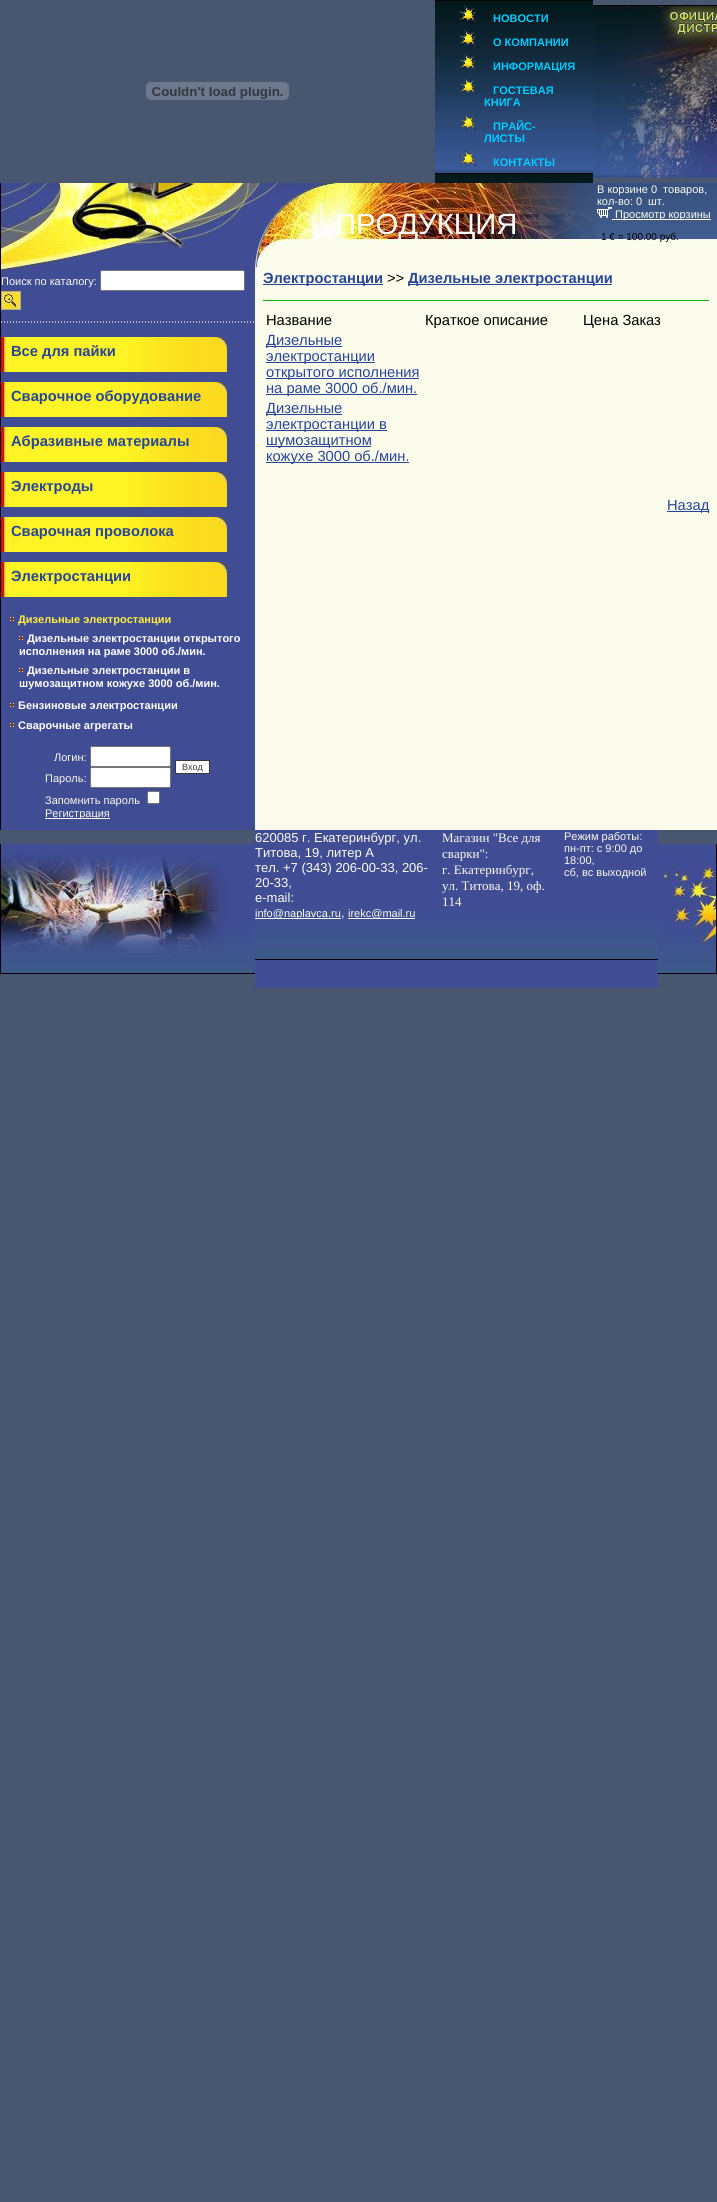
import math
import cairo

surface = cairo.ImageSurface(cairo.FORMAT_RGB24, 717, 2202)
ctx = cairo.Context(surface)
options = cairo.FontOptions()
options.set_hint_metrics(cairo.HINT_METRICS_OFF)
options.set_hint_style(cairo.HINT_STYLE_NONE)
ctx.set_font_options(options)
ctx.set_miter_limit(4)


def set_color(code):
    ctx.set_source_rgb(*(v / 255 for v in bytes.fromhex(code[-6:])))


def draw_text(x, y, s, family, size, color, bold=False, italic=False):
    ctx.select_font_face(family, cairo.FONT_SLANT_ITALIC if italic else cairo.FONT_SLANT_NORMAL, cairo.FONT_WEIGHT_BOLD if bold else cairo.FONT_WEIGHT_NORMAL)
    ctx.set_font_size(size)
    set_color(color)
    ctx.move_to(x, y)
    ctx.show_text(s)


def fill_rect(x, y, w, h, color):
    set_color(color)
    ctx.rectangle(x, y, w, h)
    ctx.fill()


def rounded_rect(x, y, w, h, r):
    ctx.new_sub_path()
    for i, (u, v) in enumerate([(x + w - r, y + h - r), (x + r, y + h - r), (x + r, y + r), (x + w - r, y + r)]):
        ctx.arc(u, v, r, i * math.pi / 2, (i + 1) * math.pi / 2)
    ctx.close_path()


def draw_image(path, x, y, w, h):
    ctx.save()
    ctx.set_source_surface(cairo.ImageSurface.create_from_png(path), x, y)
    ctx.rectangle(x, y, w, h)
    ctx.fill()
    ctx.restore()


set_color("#485670")
ctx.paint()
draw_image("assets/img1.png", 146, 82, 143, 18)
draw_image("assets/img2.png", 435, 0, 158, 183)
draw_image("assets/img3.png", 460, 6, 16, 16)
draw_text(493, 22, "НОВОСТИ", "Liberation Sans", 11, "#00ccff", bold=True)
draw_image("assets/img4.png", 460, 30, 16, 16)
draw_text(493, 46, "О КОМПАНИИ", "Liberation Sans", 11, "#00ccff", bold=True)
draw_image("assets/img5.png", 460, 54, 16, 16)
draw_text(493, 70, "ИНФОРМАЦИЯ", "Liberation Sans", 11, "#00ccff", bold=True)
draw_image("assets/img6.png", 460, 78, 16, 16)
draw_text(493, 94, "ГОСТЕВАЯ", "Liberation Sans", 11, "#00ccff", bold=True)
draw_text(484, 106, "КНИГА", "Liberation Sans", 11, "#00ccff", bold=True)
draw_image("assets/img7.png", 460, 114, 16, 16)
draw_text(493, 130, "ПРАЙС-", "Liberation Sans", 11, "#00ccff", bold=True)
draw_text(484, 142, "ЛИСТЫ", "Liberation Sans", 11, "#00ccff", bold=True)
draw_image("assets/img8.png", 460, 150, 16, 16)
draw_text(493, 166, "КОНТАКТЫ", "Liberation Sans", 11, "#00ccff", bold=True)
draw_image("assets/img9.png", 593, 5, 124, 173)
draw_image("assets/img10.png", 0, 183, 255, 87)
draw_image("assets/img11.png", 255, 183, 342, 87)
draw_text(335, 234, "ПРОДУКЦИЯ", "Liberation Sans", 29.25, "#ffffff")
draw_image("assets/img12.png", 597, 183, 120, 87)
draw_text(597, 193, "В корзине 0", "Liberation Sans", 11, "#fbfcec")
draw_text(663, 193, "товаров,", "Liberation Sans", 11, "#fbfcec")
draw_text(597, 205, "кол-во: 0", "Liberation Sans", 11, "#fbfcec")
draw_text(648, 205, "шт.", "Liberation Sans", 11, "#fbfcec")
draw_image("assets/img13.png", 597, 207, 15, 11)
fill_rect(612, 219, 99, 1, "#fbfcec")
draw_text(615, 218, "Просмотр корзины", "Liberation Sans", 11, "#fbfcec")
draw_text(601, 240, "1 € = 100.00 руб.", "Liberation Sans", 10, "#000000")
fill_rect(0, 270, 1, 560, "#020204")
fill_rect(1, 270, 254, 560, "#404c94")
draw_text(1, 285, "Поиск по каталогу:", "Liberation Sans", 11, "#fbfcec")
set_color("#ffffff")
rounded_rect(100.5, 270.5, 144, 20, 1.5)
ctx.fill_preserve()
set_color("#767676")
ctx.set_line_width(1)
ctx.stroke()
draw_image("assets/img14.png", 1, 291, 20, 19)
draw_image("assets/img15.png", 1, 321, 254, 2)
draw_image("assets/img16.png", 1, 337, 226, 35)
draw_text(11, 356, "Все для пайки", "Liberation Sans", 14.7, "#274599", bold=True)
draw_image("assets/img16.png", 1, 382, 226, 35)
draw_text(11, 401, "Сварочное оборудование", "Liberation Sans", 14.7, "#274599", bold=True)
draw_image("assets/img16.png", 1, 427, 226, 35)
draw_text(11, 446, "Абразивные материалы", "Liberation Sans", 14.7, "#274599", bold=True)
draw_image("assets/img16.png", 1, 472, 226, 35)
draw_text(11, 491, "Электроды", "Liberation Sans", 14.7, "#274599", bold=True)
draw_image("assets/img16.png", 1, 517, 226, 35)
draw_text(11, 536, "Сварочная проволока", "Liberation Sans", 14.7, "#274599", bold=True)
draw_image("assets/img16.png", 1, 562, 226, 35)
draw_text(11, 581, "Электростанции", "Liberation Sans", 14.7, "#274599", bold=True)
draw_image("assets/img17.png", 10, 617, 4, 4)
draw_text(18, 623, "Дизельные электростанции", "Liberation Sans", 11, "#ffef3f", bold=True)
draw_image("assets/img17.png", 19, 636, 4, 4)
draw_text(27, 642, "Дизельные электростанции открытого", "Liberation Sans", 11, "#ffffff", bold=True)
draw_text(19, 655, "исполнения на раме 3000 об./мин.", "Liberation Sans", 11, "#ffffff", bold=True)
draw_image("assets/img17.png", 19, 668, 4, 4)
draw_text(27, 674, "Дизельные электростанции в", "Liberation Sans", 11, "#ffffff", bold=True)
draw_text(19, 687, "шумозащитном кожухе 3000 об./мин.", "Liberation Sans", 11, "#ffffff", bold=True)
draw_image("assets/img17.png", 10, 703, 4, 4)
draw_text(18, 709, "Бензиновые электростанции", "Liberation Sans", 11, "#ffffff", bold=True)
draw_image("assets/img17.png", 10, 723, 4, 4)
draw_text(18, 729, "Сварочные агрегаты", "Liberation Sans", 11, "#ffffff", bold=True)
draw_text(54, 761, "Логин:", "Liberation Sans", 11, "#fbfcec")
set_color("#ffffff")
rounded_rect(90.5, 746.5, 80, 20, 1.5)
ctx.fill_preserve()
set_color("#767676")
ctx.stroke()
draw_text(45, 782, "Пароль:", "Liberation Sans", 11, "#fbfcec")
set_color("#ffffff")
rounded_rect(90.5, 767.5, 80, 20, 1.5)
ctx.fill_preserve()
set_color("#767676")
ctx.stroke()
set_color("#ffffff")
ctx.rectangle(175.5, 760.5, 34, 13)
ctx.fill_preserve()
set_color("#373737")
ctx.stroke()
draw_text(182, 770, "Вход", "Liberation Sans", 9, "#373737")
draw_text(45, 804, "Запомнить пароль", "Liberation Sans", 11, "#fbfcec")
set_color("#ffffff")
rounded_rect(147.5, 791.5, 12, 12, 1.5)
ctx.fill_preserve()
set_color("#767676")
ctx.stroke()
fill_rect(45, 818, 65, 1, "#fbfcec")
draw_text(45, 817, "Регистрация", "Liberation Sans", 11, "#fbfcec")
fill_rect(255, 270, 462, 560, "#fbfcec")
fill_rect(263, 284, 120, 1, "#274599")
draw_text(263, 283, "Электростанции", "Liberation Sans", 14.7, "#274599", bold=True)
draw_text(387, 283, ">>", "Liberation Sans", 14.7, "#000000")
fill_rect(408, 284, 204, 1, "#274599")
draw_text(408, 283, "Дизельные электростанции", "Liberation Sans", 14.7, "#274599", bold=True)
fill_rect(263, 300, 446, 1, "#00b900")
draw_text(266, 325, "Название", "Liberation Sans", 14.7, "#000000")
draw_text(425, 325, "Краткое описание", "Liberation Sans", 14.7, "#000000")
draw_text(583, 325, "Цена Заказ", "Liberation Sans", 14.7, "#000000")
fill_rect(266, 346, 76, 1, "#274599")
draw_text(266, 345, "Дизельные", "Liberation Sans", 14.7, "#274599")
fill_rect(266, 362, 109, 1, "#274599")
draw_text(266, 361, "электростанции", "Liberation Sans", 14.7, "#274599")
fill_rect(266, 378, 153, 1, "#274599")
draw_text(266, 377, "открытого исполнения", "Liberation Sans", 14.7, "#274599")
fill_rect(266, 394, 151, 1, "#274599")
draw_text(266, 393, "на раме 3000 об./мин.", "Liberation Sans", 14.7, "#274599")
fill_rect(266, 414, 76, 1, "#274599")
draw_text(266, 413, "Дизельные", "Liberation Sans", 14.7, "#274599")
fill_rect(266, 430, 121, 1, "#274599")
draw_text(266, 429, "электростанции в", "Liberation Sans", 14.7, "#274599")
fill_rect(266, 446, 105, 1, "#274599")
draw_text(266, 445, "шумозащитном", "Liberation Sans", 14.7, "#274599")
fill_rect(266, 462, 143, 1, "#274599")
draw_text(266, 461, "кожухе 3000 об./мин.", "Liberation Sans", 14.7, "#274599")
fill_rect(667, 511, 42, 1, "#274599")
draw_text(667, 510, "Назад", "Liberation Sans", 14.7, "#274599")
draw_image("assets/img18.png", 0, 844, 255, 130)
draw_image("assets/img19.png", 255, 830, 403, 158)
draw_text(255, 842, "620085 г. Екатеринбург, ул.", "Liberation Sans", 13, "#fbfcec")
draw_text(255, 857, "Титова, 19, литер A", "Liberation Sans", 13, "#fbfcec")
draw_text(255, 872, "тел. +7 (343) 206-00-33, 206-", "Liberation Sans", 13, "#fbfcec")
draw_text(255, 887, "20-33,", "Liberation Sans", 13, "#fbfcec")
draw_text(255, 902, "e-mail:", "Liberation Sans", 13, "#fbfcec")
fill_rect(255, 918, 86, 1, "#fbfcec")
draw_text(255, 917, "info@naplavca.ru", "Liberation Sans", 11, "#fbfcec")
draw_text(341, 917, ",", "Liberation Sans", 13, "#fbfcec")
fill_rect(348, 918, 67, 1, "#fbfcec")
draw_text(348, 917, "irekc@mail.ru", "Liberation Sans", 11, "#fbfcec")
draw_text(442, 842, "Магазин \"Все для", "Liberation Serif", 13, "#fbfcec")
draw_text(442, 858, "сварки\":", "Liberation Serif", 13, "#fbfcec")
draw_text(442, 874, "г. Екатеринбург,", "Liberation Serif", 13, "#fbfcec")
draw_text(442, 890, "ул. Титова, 19, оф.", "Liberation Serif", 13, "#fbfcec")
draw_text(442, 906, "114", "Liberation Serif", 13, "#fbfcec")
draw_text(564, 840, "Режим работы:", "Liberation Sans", 11, "#fbfcec")
draw_text(564, 852, "пн-пт: с 9:00 до", "Liberation Sans", 11, "#fbfcec")
draw_text(564, 864, "18:00,", "Liberation Sans", 11, "#fbfcec")
draw_text(564, 876, "сб, вс выходной", "Liberation Sans", 11, "#fbfcec")
draw_image("assets/img20.png", 658, 844, 59, 130)
surface.write_to_png("output.png")
